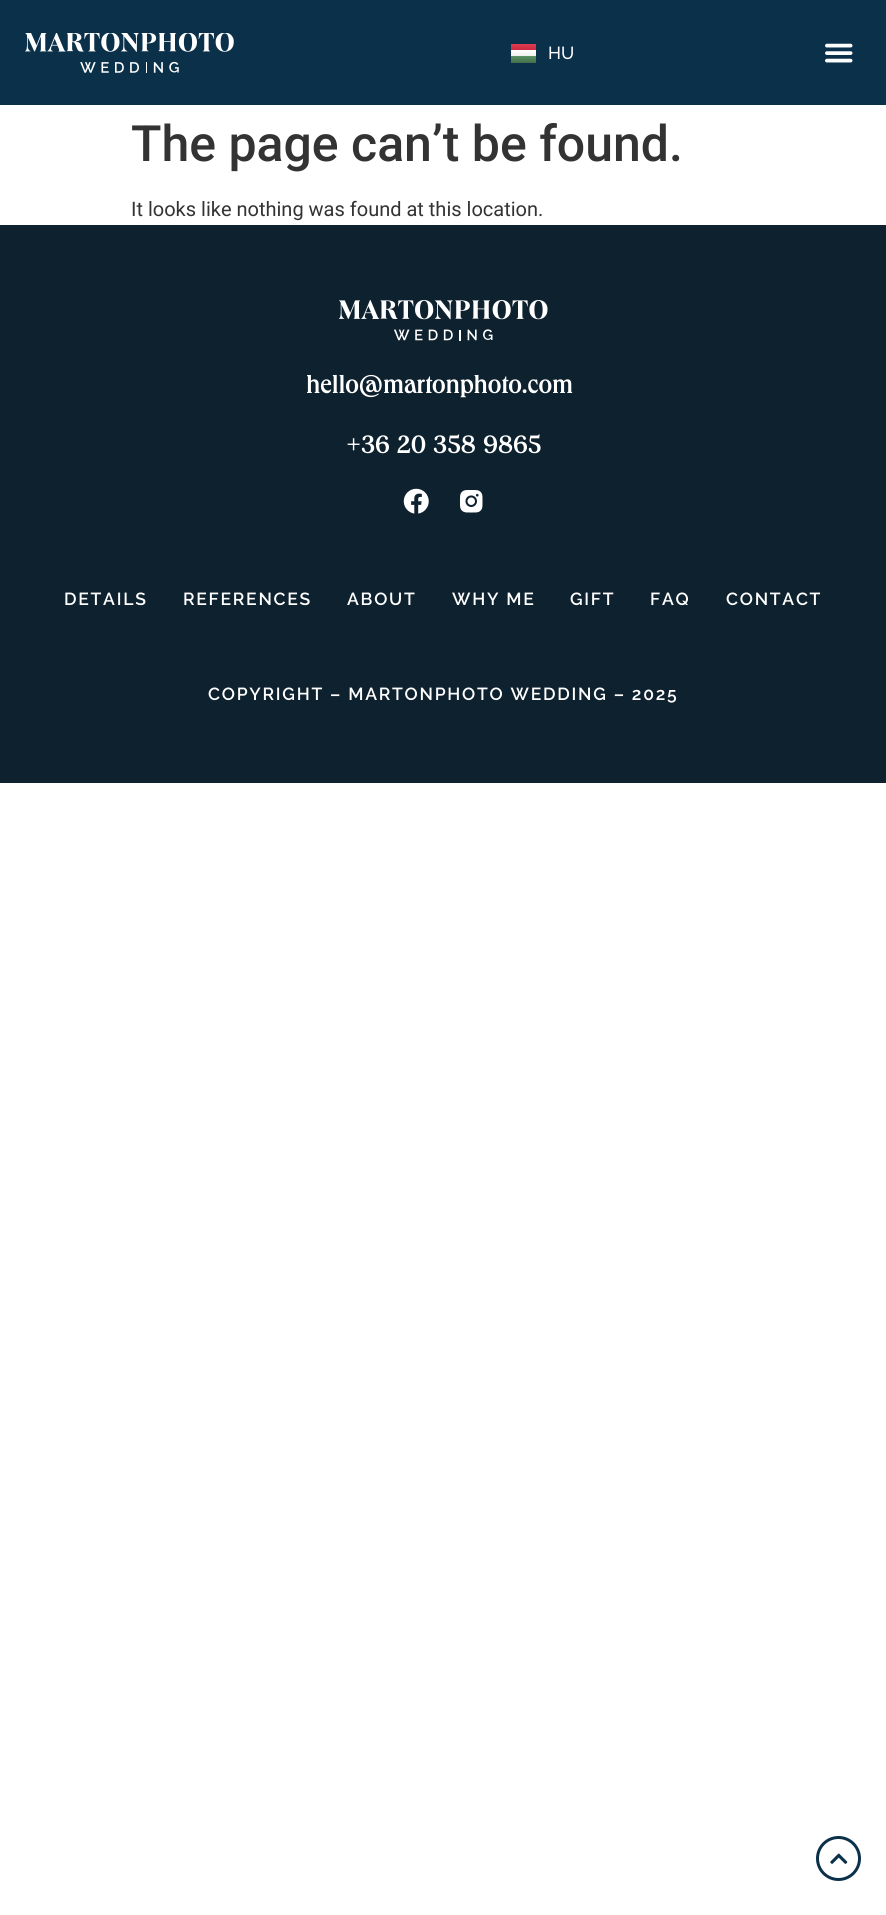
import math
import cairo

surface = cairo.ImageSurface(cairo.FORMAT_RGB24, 886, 1915)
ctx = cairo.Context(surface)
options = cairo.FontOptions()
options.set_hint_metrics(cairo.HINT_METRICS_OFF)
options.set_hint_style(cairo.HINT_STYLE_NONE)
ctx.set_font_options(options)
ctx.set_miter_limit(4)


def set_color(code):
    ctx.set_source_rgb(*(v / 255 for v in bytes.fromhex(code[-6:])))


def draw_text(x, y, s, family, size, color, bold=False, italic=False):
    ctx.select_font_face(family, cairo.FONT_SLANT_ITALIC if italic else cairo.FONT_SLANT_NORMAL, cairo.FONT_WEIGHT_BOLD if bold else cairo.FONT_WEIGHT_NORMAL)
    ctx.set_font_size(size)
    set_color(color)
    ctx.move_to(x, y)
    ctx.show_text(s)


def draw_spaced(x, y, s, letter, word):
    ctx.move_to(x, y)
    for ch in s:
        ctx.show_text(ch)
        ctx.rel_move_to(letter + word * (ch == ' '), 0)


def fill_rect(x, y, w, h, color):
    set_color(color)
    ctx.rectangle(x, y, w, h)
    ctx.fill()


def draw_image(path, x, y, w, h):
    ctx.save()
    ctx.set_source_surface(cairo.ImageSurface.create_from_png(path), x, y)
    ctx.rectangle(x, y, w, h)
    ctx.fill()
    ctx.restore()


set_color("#ffffff")
ctx.paint()
fill_rect(0, 0, 886, 105, "#0b304a")
draw_image("assets/img1.png", 25, 33, 209, 40)
gradient = cairo.LinearGradient(523, 44, 523, 50)
gradient.add_color_stop_rgba(0, 0.878, 0.239, 0.322, 1)
gradient.add_color_stop_rgba(1, 0.804, 0.165, 0.247, 1)
ctx.set_source(gradient)
ctx.rectangle(511, 44, 25, 6)
ctx.fill()
gradient = cairo.LinearGradient(523, 50, 523, 56)
gradient.add_color_stop_rgba(0, 1, 1, 1, 1)
gradient.add_color_stop_rgba(1, 0.941, 0.941, 0.941, 1)
ctx.set_source(gradient)
ctx.rectangle(511, 50, 25, 6)
ctx.fill()
gradient = cairo.LinearGradient(523, 56, 523, 63)
gradient.add_color_stop_rgba(0, 0.353, 0.569, 0.396, 1)
gradient.add_color_stop_rgba(1, 0.267, 0.439, 0.302, 1)
ctx.set_source(gradient)
ctx.rectangle(511, 56, 25, 7)
ctx.fill()
draw_text(548, 59, "HU", "Raleway Medium", 17.5, "#ffffff")
draw_image("assets/img2.png", 825, 43, 28, 20)
ctx.arc(838.5, 1858.5, 21, 0, 2 * math.pi)
set_color("#0b304a")
ctx.set_line_width(3)
ctx.stroke()
draw_image("assets/img3.png", 830, 1853, 18, 11)
draw_text(131, 161, "The page can’t be found.", "Roboto Medium", 50, "#333333")
draw_text(131, 216, "It looks like nothing was found at this location.", "Roboto", 20, "#333333")
fill_rect(0, 225, 886, 558, "#0e212e")
draw_image("assets/img4.png", 339, 300, 209, 41)
ctx.select_font_face("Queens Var", cairo.FONT_SLANT_NORMAL, cairo.FONT_WEIGHT_BOLD)
ctx.set_font_size(25)
set_color("#ffffff")
draw_spaced(306, 393, "hello@martonphoto.com", 0.5, 0)
draw_spaced(346, 453, "+36 20 358 9865", 0.5, 1)
draw_image("assets/img5.png", 403, 488, 26, 26)
draw_image("assets/img6.png", 460, 490, 23, 23)
ctx.select_font_face("Raleway SemiBold")
ctx.set_font_size(17.5)
draw_spaced(64, 605, "DETAILS", 1.75, 0)
draw_spaced(183, 605, "REFERENCES", 1.75, 0)
draw_spaced(347, 605, "ABOUT", 1.75, 0)
draw_spaced(452, 605, "WHY ME", 1.75, 0)
draw_spaced(570, 605, "GIFT", 1.75, 0)
draw_spaced(650, 605, "FAQ", 1.75, 0)
draw_spaced(726, 605, "CONTACT", 1.75, 0)
draw_spaced(208, 700, "COPYRIGHT – MARTONPHOTO WEDDING – 2025", 1.75, 0)
surface.write_to_png("output.png")
